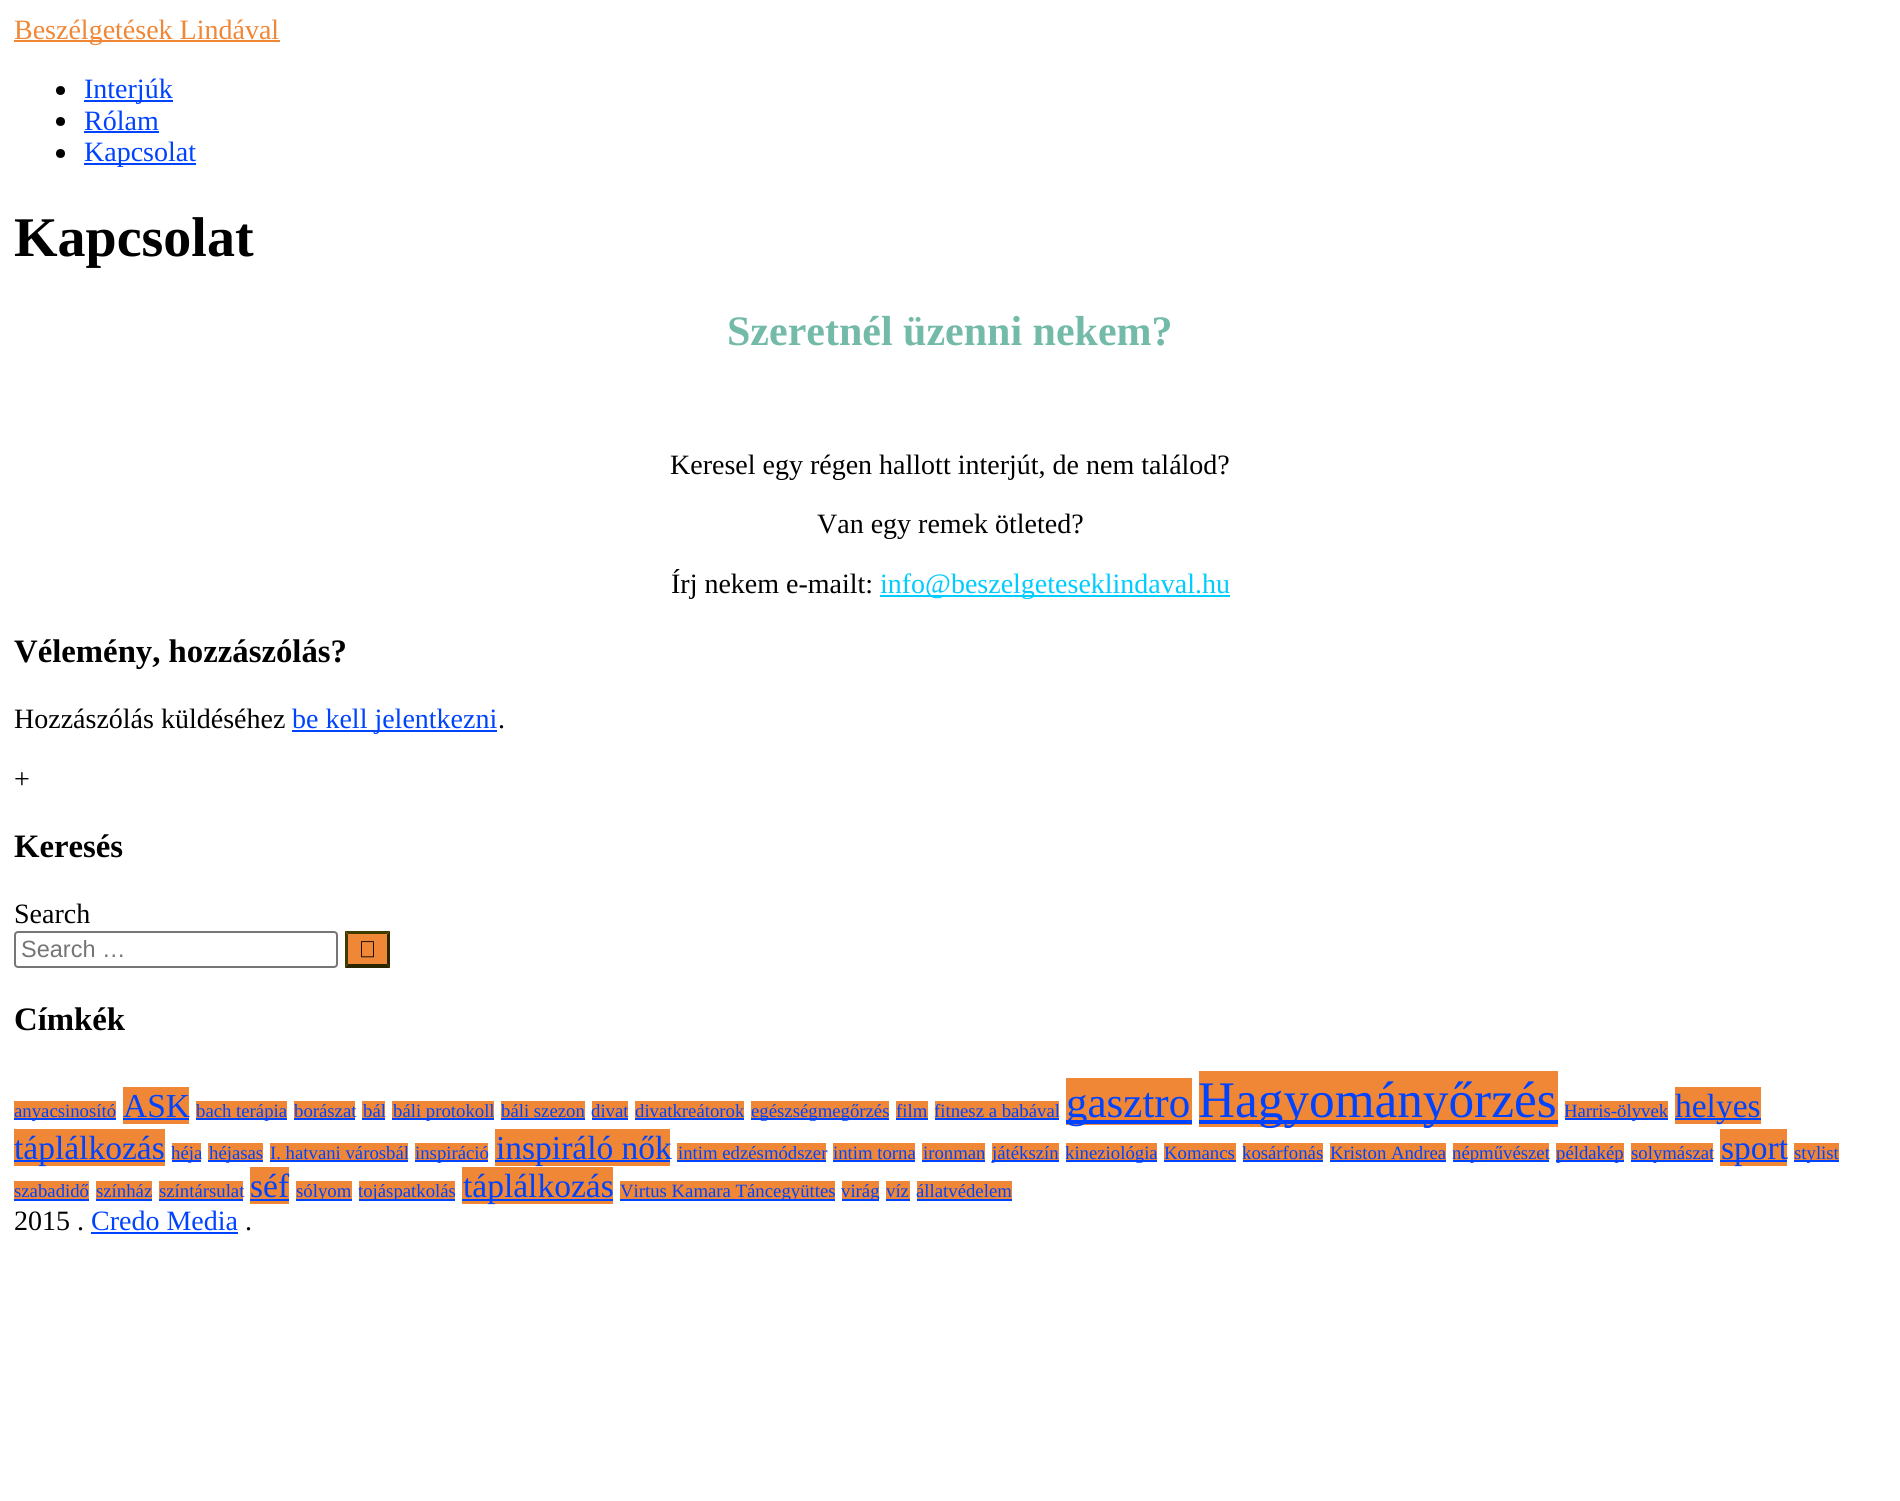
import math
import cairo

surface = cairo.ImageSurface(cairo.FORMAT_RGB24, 1900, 1501)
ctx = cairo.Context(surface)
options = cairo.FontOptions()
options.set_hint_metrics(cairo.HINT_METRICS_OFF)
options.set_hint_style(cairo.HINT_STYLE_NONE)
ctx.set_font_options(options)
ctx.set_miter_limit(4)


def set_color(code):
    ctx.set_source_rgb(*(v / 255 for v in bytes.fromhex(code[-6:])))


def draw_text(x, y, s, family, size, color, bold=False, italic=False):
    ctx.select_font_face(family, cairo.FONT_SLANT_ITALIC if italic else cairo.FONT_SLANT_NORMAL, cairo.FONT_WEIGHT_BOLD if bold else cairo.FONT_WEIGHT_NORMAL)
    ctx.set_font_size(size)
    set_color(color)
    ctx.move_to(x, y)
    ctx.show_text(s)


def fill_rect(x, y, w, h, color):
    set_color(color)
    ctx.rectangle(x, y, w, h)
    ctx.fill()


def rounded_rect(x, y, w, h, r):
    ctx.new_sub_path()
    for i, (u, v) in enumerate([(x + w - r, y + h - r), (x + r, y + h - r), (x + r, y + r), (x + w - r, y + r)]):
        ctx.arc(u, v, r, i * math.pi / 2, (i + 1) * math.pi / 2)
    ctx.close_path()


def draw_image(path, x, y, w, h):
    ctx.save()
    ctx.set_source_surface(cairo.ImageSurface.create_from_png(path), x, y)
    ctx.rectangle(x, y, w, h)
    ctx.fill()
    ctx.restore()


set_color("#ffffff")
ctx.paint()
fill_rect(14, 40, 266, 2, "#ef8737")
draw_text(14, 39, "Beszélgetések Lindával", "Liberation Serif", 28, "#ef8737")
set_color("#000000")
ctx.new_path()
ctx.arc(60.5, 90.5, 4.5, 0, 2 * math.pi)
ctx.fill()
fill_rect(84, 100, 89, 2, "#0043ff")
draw_text(84, 98, "Interjúk", "Liberation Serif", 28, "#0043ff")
set_color("#000000")
ctx.new_path()
ctx.arc(60.5, 121.5, 4.5, 0, 2 * math.pi)
ctx.fill()
draw_text(84, 130, "Rólam", "Liberation Serif", 28, "#0043ff")
fill_rect(84, 131, 75, 2, "#0043ff")
set_color("#000000")
ctx.new_path()
ctx.arc(60.5, 153.5, 4.5, 0, 2 * math.pi)
ctx.fill()
fill_rect(84, 163, 112, 2, "#0043ff")
draw_text(84, 161, "Kapcsolat", "Liberation Serif", 28, "#0043ff")
draw_text(14, 256, "Kapcsolat", "Liberation Serif", 56, "#000000", bold=True)
draw_text(727, 345, "Szeretnél üzenni nekem?", "Liberation Serif", 42, "#73baa8", bold=True)
draw_text(670, 474, "Keresel egy régen hallott interjút, de nem találod?", "Liberation Serif", 28, "#000000")
draw_text(817, 533, "Van egy remek ötleted?", "Liberation Serif", 28, "#000000")
draw_text(671, 593, "Írj nekem e-mailt:", "Liberation Serif", 28, "#000000")
fill_rect(880, 595, 350, 2, "#00ccff")
draw_text(880, 593, "info@beszelgeteseklindaval.hu", "Liberation Serif", 28, "#00ccff")
draw_text(14, 662, "Vélemény, hozzászólás?", "Liberation Serif", 32.75, "#000000", bold=True)
draw_text(14, 728, "Hozzászólás küldéséhez", "Liberation Serif", 28, "#000000")
fill_rect(292, 730, 205, 2, "#0043ff")
draw_text(292, 728, "be kell jelentkezni", "Liberation Serif", 28, "#0043ff")
draw_text(498, 728, ".", "Liberation Serif", 28, "#000000")
draw_text(14, 788, "+", "Liberation Serif", 28, "#000000")
draw_text(14, 857, "Keresés", "Liberation Serif", 32.75, "#000000", bold=True)
draw_text(14, 923, "Search", "Liberation Serif", 28, "#000000")
rounded_rect(15, 932, 322, 35, 3)
set_color("#767676")
ctx.stroke()
draw_text(21, 957, "Search …", "Liberation Sans", 23.5, "#757575")
fill_rect(345, 931, 45, 37, "#ef8737")
set_color("#3f3b00")
ctx.new_path()
ctx.move_to(345, 931)
ctx.line_to(390, 931)
ctx.line_to(387, 934)
ctx.line_to(348, 934)
ctx.close_path()
ctx.fill()
set_color("#2a2700")
ctx.new_path()
ctx.move_to(390, 931)
ctx.line_to(390, 968)
ctx.line_to(387, 964)
ctx.line_to(387, 934.5)
ctx.close_path()
ctx.fill()
ctx.new_path()
ctx.move_to(390, 968)
ctx.line_to(345, 968)
ctx.line_to(348, 964)
ctx.line_to(387, 964)
ctx.close_path()
ctx.fill()
set_color("#3f3b00")
ctx.new_path()
ctx.move_to(345, 968)
ctx.line_to(345, 931)
ctx.line_to(348, 934.5)
ctx.line_to(348, 964)
ctx.close_path()
ctx.fill()
draw_image("assets/img1.png", 361, 941, 13, 17)
draw_text(14, 1030, "Címkék", "Liberation Serif", 32.75, "#000000", bold=True)
fill_rect(14, 1101, 102, 17, "#ef8737")
fill_rect(14, 1118, 102, 2, "#0043ff")
draw_text(14, 1117, "anyacsinosító", "Liberation Serif", 18.75, "#0043ff")
fill_rect(123, 1087, 66, 37, "#ef8737")
draw_text(123, 1117, "ASK", "Liberation Serif", 33.5, "#0043ff")
fill_rect(123, 1118, 66, 2, "#0043ff")
fill_rect(196, 1101, 91, 17, "#ef8737")
fill_rect(196, 1118, 91, 2, "#0043ff")
draw_text(196, 1117, "bach terápia", "Liberation Serif", 18.75, "#0043ff")
fill_rect(294, 1101, 61, 17, "#ef8737")
draw_text(294, 1117, "borászat", "Liberation Serif", 18.75, "#0043ff")
fill_rect(294, 1118, 61, 2, "#0043ff")
fill_rect(362, 1101, 23, 17, "#ef8737")
draw_text(363, 1117, "bál", "Liberation Serif", 18.75, "#0043ff")
fill_rect(362, 1118, 23, 2, "#0043ff")
fill_rect(392, 1101, 102, 17, "#ef8737")
fill_rect(392, 1118, 102, 2, "#0043ff")
draw_text(393, 1117, "báli protokoll", "Liberation Serif", 18.75, "#0043ff")
fill_rect(501, 1101, 84, 17, "#ef8737")
draw_text(501, 1117, "báli szezon", "Liberation Serif", 18.75, "#0043ff")
fill_rect(501, 1118, 84, 2, "#0043ff")
fill_rect(592, 1101, 36, 17, "#ef8737")
draw_text(591, 1117, "divat", "Liberation Serif", 18.75, "#0043ff")
fill_rect(592, 1118, 36, 2, "#0043ff")
fill_rect(635, 1101, 109, 17, "#ef8737")
draw_text(635, 1117, "divatkreátorok", "Liberation Serif", 18.75, "#0043ff")
fill_rect(635, 1118, 109, 2, "#0043ff")
fill_rect(751, 1101, 138, 17, "#ef8737")
fill_rect(751, 1118, 138, 2, "#0043ff")
draw_text(751, 1117, "egészségmegőrzés", "Liberation Serif", 18.75, "#0043ff")
fill_rect(896, 1101, 32, 17, "#ef8737")
draw_text(896, 1117, "film", "Liberation Serif", 18.75, "#0043ff")
fill_rect(896, 1118, 32, 2, "#0043ff")
fill_rect(935, 1101, 124, 17, "#ef8737")
draw_text(934, 1117, "fitnesz a babával", "Liberation Serif", 18.75, "#0043ff")
fill_rect(935, 1118, 124, 2, "#0043ff")
fill_rect(1066, 1078, 126, 47, "#ef8737")
fill_rect(1066, 1120, 126, 4, "#0043ff")
draw_text(1066, 1117, "gasztro", "Liberation Serif", 43, "#0043ff")
fill_rect(1199, 1071, 359, 56, "#ef8737")
fill_rect(1199, 1120, 359, 4, "#0043ff")
draw_text(1198, 1117, "Hagyományőrzés", "Liberation Serif", 51.25, "#0043ff")
fill_rect(1565, 1101, 103, 17, "#ef8737")
fill_rect(1565, 1118, 103, 2, "#0043ff")
draw_text(1564, 1117, "Harris-ölyvek", "Liberation Serif", 18.75, "#0043ff")
fill_rect(1675, 1087, 86, 37, "#ef8737")
fill_rect(1675, 1118, 86, 2, "#0043ff")
draw_text(1675, 1117, "helyes", "Liberation Serif", 33.5, "#0043ff")
fill_rect(14, 1129, 151, 37, "#ef8737")
fill_rect(14, 1160, 151, 2, "#0043ff")
draw_text(14, 1159, "táplálkozás", "Liberation Serif", 33.5, "#0043ff")
fill_rect(172, 1143, 29, 17, "#ef8737")
fill_rect(172, 1160, 29, 2, "#0043ff")
draw_text(171, 1159, "héja", "Liberation Serif", 18.75, "#0043ff")
fill_rect(208, 1143, 55, 17, "#ef8737")
fill_rect(208, 1160, 55, 2, "#0043ff")
draw_text(209, 1159, "héjasas", "Liberation Serif", 18.75, "#0043ff")
fill_rect(270, 1143, 138, 17, "#ef8737")
draw_text(270, 1159, "I. hatvani városbál", "Liberation Serif", 18.75, "#0043ff")
fill_rect(270, 1160, 138, 2, "#0043ff")
fill_rect(415, 1143, 73, 17, "#ef8737")
fill_rect(415, 1160, 73, 2, "#0043ff")
draw_text(415, 1159, "inspiráció", "Liberation Serif", 18.75, "#0043ff")
fill_rect(495, 1129, 175, 37, "#ef8737")
fill_rect(495, 1160, 175, 2, "#0043ff")
draw_text(496, 1159, "inspiráló nők", "Liberation Serif", 33.5, "#0043ff")
fill_rect(677, 1143, 149, 17, "#ef8737")
draw_text(678, 1159, "intim edzésmódszer", "Liberation Serif", 18.75, "#0043ff")
fill_rect(677, 1160, 149, 2, "#0043ff")
fill_rect(833, 1143, 82, 17, "#ef8737")
draw_text(833, 1159, "intim torna", "Liberation Serif", 18.75, "#0043ff")
fill_rect(833, 1160, 82, 2, "#0043ff")
fill_rect(922, 1143, 63, 17, "#ef8737")
draw_text(923, 1159, "ironman", "Liberation Serif", 18.75, "#0043ff")
fill_rect(922, 1160, 63, 2, "#0043ff")
fill_rect(992, 1143, 67, 17, "#ef8737")
fill_rect(992, 1160, 67, 2, "#0043ff")
draw_text(992, 1159, "játékszín", "Liberation Serif", 18.75, "#0043ff")
fill_rect(1066, 1143, 91, 17, "#ef8737")
fill_rect(1066, 1160, 91, 2, "#0043ff")
draw_text(1065, 1159, "kineziológia", "Liberation Serif", 18.75, "#0043ff")
fill_rect(1164, 1143, 72, 17, "#ef8737")
draw_text(1164, 1159, "Komancs", "Liberation Serif", 18.75, "#0043ff")
fill_rect(1164, 1160, 72, 2, "#0043ff")
fill_rect(1243, 1143, 80, 17, "#ef8737")
draw_text(1242, 1159, "kosárfonás", "Liberation Serif", 18.75, "#0043ff")
fill_rect(1243, 1160, 80, 2, "#0043ff")
fill_rect(1330, 1143, 116, 17, "#ef8737")
draw_text(1330, 1159, "Kriston Andrea", "Liberation Serif", 18.75, "#0043ff")
fill_rect(1330, 1160, 116, 2, "#0043ff")
fill_rect(1453, 1143, 96, 17, "#ef8737")
fill_rect(1453, 1160, 96, 2, "#0043ff")
draw_text(1452, 1159, "népművészet", "Liberation Serif", 18.75, "#0043ff")
fill_rect(1556, 1143, 68, 17, "#ef8737")
fill_rect(1556, 1160, 68, 2, "#0043ff")
draw_text(1556, 1159, "példakép", "Liberation Serif", 18.75, "#0043ff")
fill_rect(1631, 1143, 82, 17, "#ef8737")
fill_rect(1631, 1160, 82, 2, "#0043ff")
draw_text(1631, 1159, "solymászat", "Liberation Serif", 18.75, "#0043ff")
fill_rect(1720, 1129, 67, 37, "#ef8737")
fill_rect(1720, 1160, 67, 2, "#0043ff")
draw_text(1721, 1159, "sport", "Liberation Serif", 33.5, "#0043ff")
fill_rect(1794, 1143, 45, 17, "#ef8737")
fill_rect(1794, 1160, 45, 2, "#0043ff")
draw_text(1794, 1159, "stylist", "Liberation Serif", 18.75, "#0043ff")
fill_rect(14, 1181, 75, 18, "#ef8737")
draw_text(14, 1197, "szabadidő", "Liberation Serif", 18.75, "#0043ff")
fill_rect(14, 1199, 75, 2, "#0043ff")
fill_rect(96, 1181, 56, 18, "#ef8737")
draw_text(96, 1197, "színház", "Liberation Serif", 18.75, "#0043ff")
fill_rect(96, 1199, 56, 2, "#0043ff")
fill_rect(159, 1181, 84, 18, "#ef8737")
draw_text(159, 1197, "színtársulat", "Liberation Serif", 18.75, "#0043ff")
fill_rect(159, 1199, 84, 2, "#0043ff")
fill_rect(250, 1167, 39, 37, "#ef8737")
draw_text(250, 1197, "séf", "Liberation Serif", 33.5, "#0043ff")
fill_rect(250, 1199, 39, 2, "#0043ff")
fill_rect(296, 1181, 56, 18, "#ef8737")
fill_rect(296, 1199, 56, 2, "#0043ff")
draw_text(296, 1197, "sólyom", "Liberation Serif", 18.75, "#0043ff")
fill_rect(359, 1181, 96, 18, "#ef8737")
fill_rect(359, 1199, 96, 2, "#0043ff")
draw_text(358, 1197, "tojáspatkolás", "Liberation Serif", 18.75, "#0043ff")
fill_rect(462, 1167, 151, 37, "#ef8737")
fill_rect(462, 1199, 151, 2, "#0043ff")
draw_text(463, 1197, "táplálkozás", "Liberation Serif", 33.5, "#0043ff")
fill_rect(620, 1181, 215, 18, "#ef8737")
fill_rect(620, 1199, 215, 2, "#0043ff")
draw_text(620, 1197, "Virtus Kamara Táncegyüttes", "Liberation Serif", 18.75, "#0043ff")
fill_rect(842, 1181, 37, 18, "#ef8737")
fill_rect(842, 1199, 37, 2, "#0043ff")
draw_text(841, 1197, "virág", "Liberation Serif", 18.75, "#0043ff")
fill_rect(886, 1181, 24, 18, "#ef8737")
draw_text(886, 1197, "víz", "Liberation Serif", 18.75, "#0043ff")
fill_rect(886, 1199, 24, 2, "#0043ff")
fill_rect(917, 1181, 95, 18, "#ef8737")
draw_text(916, 1197, "állatvédelem", "Liberation Serif", 18.75, "#0043ff")
fill_rect(917, 1199, 95, 2, "#0043ff")
draw_text(14, 1230, "2015 .", "Liberation Serif", 28, "#000000")
draw_text(91, 1230, "Credo Media", "Liberation Serif", 28, "#0043ff")
draw_text(245, 1230, ".", "Liberation Serif", 28, "#000000")
fill_rect(91, 1232, 147, 2, "#0043ff")
surface.write_to_png("output.png")
